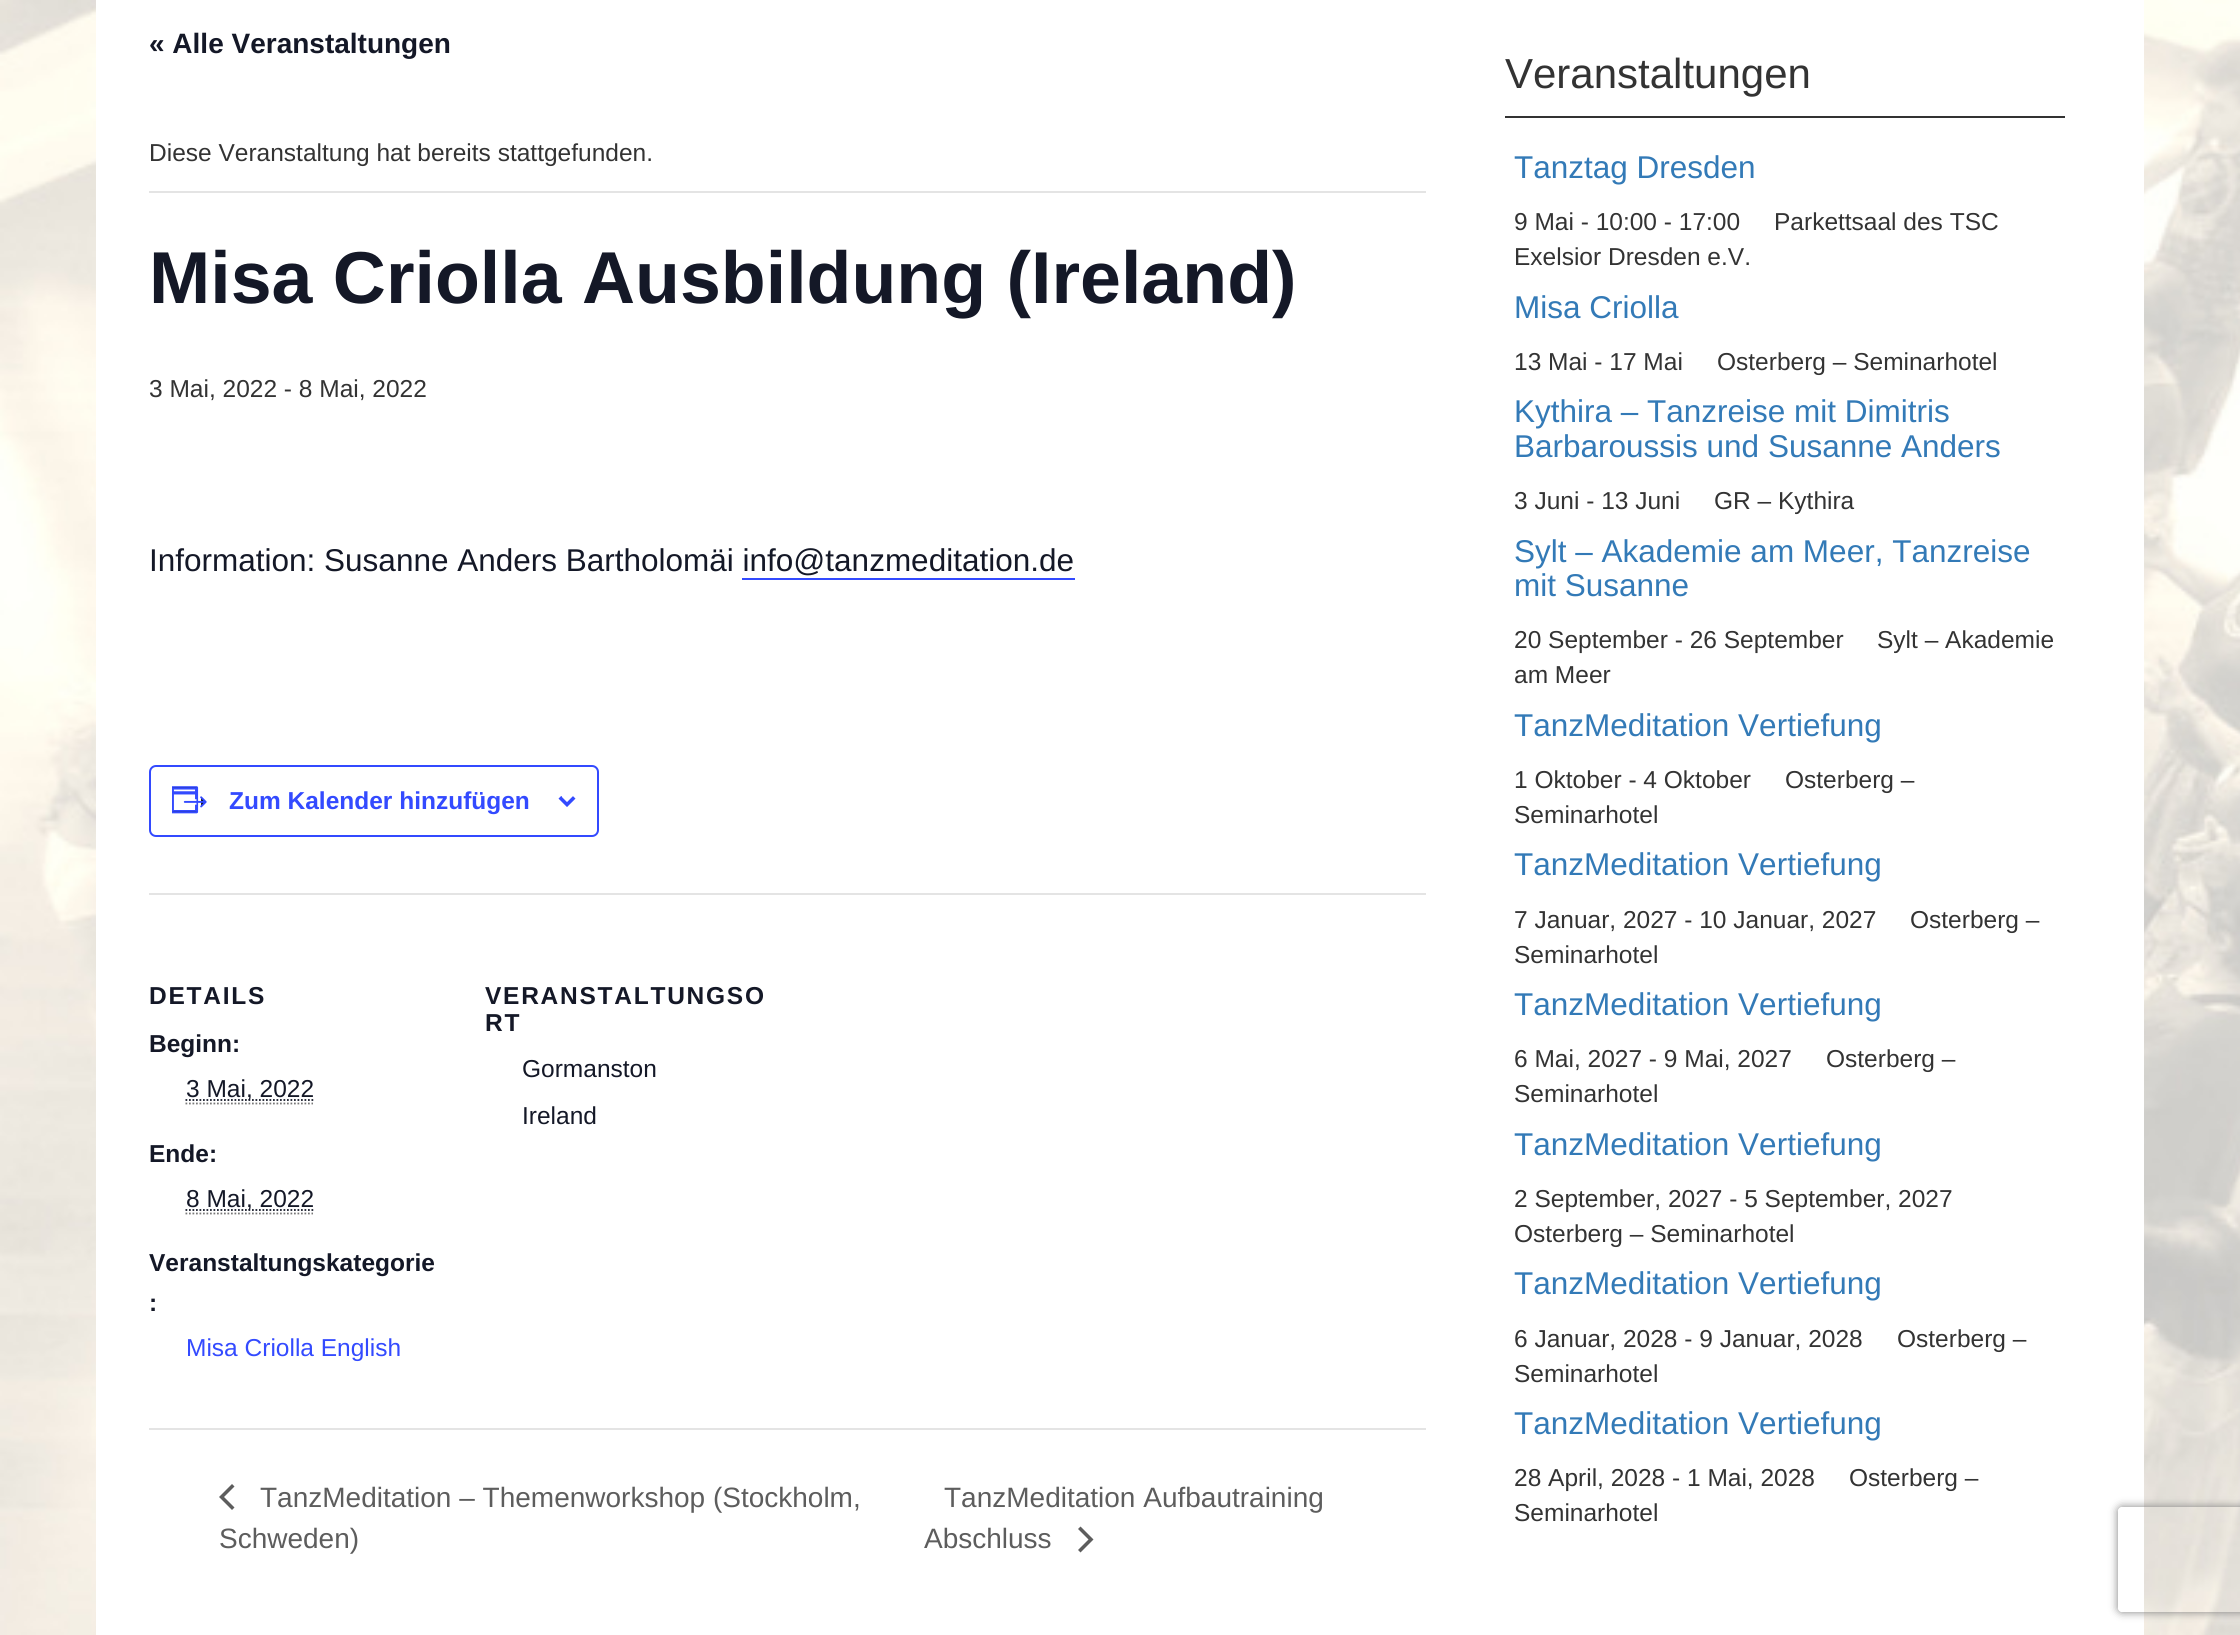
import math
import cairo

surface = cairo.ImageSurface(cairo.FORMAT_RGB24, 2240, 1635)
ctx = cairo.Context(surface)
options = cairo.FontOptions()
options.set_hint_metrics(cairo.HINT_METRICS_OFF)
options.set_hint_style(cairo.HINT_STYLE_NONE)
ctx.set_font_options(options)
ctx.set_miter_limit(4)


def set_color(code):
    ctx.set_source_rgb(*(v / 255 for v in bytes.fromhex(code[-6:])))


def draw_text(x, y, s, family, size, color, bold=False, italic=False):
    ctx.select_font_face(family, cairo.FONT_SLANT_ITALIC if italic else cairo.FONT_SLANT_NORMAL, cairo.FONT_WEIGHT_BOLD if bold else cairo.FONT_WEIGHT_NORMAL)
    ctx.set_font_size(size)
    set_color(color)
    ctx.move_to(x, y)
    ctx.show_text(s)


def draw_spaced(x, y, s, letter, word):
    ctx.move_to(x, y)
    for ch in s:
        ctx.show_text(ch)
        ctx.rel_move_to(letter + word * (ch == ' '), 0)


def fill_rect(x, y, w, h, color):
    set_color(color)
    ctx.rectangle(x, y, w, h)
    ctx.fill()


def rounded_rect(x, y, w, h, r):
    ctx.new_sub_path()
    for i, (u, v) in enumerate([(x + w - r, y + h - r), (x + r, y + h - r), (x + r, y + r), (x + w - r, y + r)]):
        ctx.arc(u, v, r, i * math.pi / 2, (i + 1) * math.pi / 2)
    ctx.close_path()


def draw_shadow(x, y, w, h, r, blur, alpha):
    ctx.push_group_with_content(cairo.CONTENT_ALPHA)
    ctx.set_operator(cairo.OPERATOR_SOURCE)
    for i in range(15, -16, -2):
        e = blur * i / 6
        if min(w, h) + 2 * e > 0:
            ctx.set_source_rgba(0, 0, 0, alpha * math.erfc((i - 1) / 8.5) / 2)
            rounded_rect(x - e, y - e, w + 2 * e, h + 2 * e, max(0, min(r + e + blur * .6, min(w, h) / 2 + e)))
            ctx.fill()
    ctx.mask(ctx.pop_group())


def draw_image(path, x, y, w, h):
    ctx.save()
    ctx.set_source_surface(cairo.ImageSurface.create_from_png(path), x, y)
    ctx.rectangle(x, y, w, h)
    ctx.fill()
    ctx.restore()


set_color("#ffffff")
ctx.paint()
draw_image("assets/img1.png", 0, 0, 2240, 1635)
fill_rect(96, 0, 2048, 1635, "#ffffff")
draw_text(149, 53, "« Alle Veranstaltungen", "Liberation Sans", 28, "#141827", bold=True)
fill_rect(149, 191, 1277, 2, "#e4e4e4")
draw_text(149, 161, "Diese Veranstaltung hat bereits stattgefunden.", "Liberation Sans", 24.5, "#333333")
draw_text(149, 303, "Misa Criolla Ausbildung (Ireland)", "Liberation Sans", 73.5, "#141827", bold=True)
draw_text(149, 397, "3 Mai, 2022 - 8 Mai, 2022", "Liberation Sans", 24.5, "#333333")
draw_text(149, 571, "Information: Susanne Anders Bartholomäi info@tanzmeditation.de", "Liberation Sans", 31.5, "#141827")
fill_rect(742, 578, 333, 2, "#334aff")
rounded_rect(150, 766, 448, 70, 6)
ctx.stroke()
draw_image("assets/img2.png", 172, 786, 35, 28)
draw_text(229, 809, "Zum Kalender hinzufügen", "Liberation Sans", 24.5, "#334aff", bold=True)
draw_image("assets/img3.png", 558, 796, 18, 11)
fill_rect(149, 893, 1277, 2, "#e4e4e4")
set_color("#141827")
draw_spaced(149, 1004, "DETAILS", 1.75, 0)
draw_text(149, 1052, "Beginn:", "Liberation Sans", 24.5, "#141827", bold=True)
ctx.new_path()
ctx.move_to(185.5, 1100)
ctx.line_to(313.5, 1100)
ctx.set_line_width(1.8)
ctx.set_dash([1.75, 1.75])
ctx.stroke()
draw_text(186, 1097, "3 Mai, 2022", "Liberation Sans", 24.5, "#141827")
ctx.new_path()
ctx.move_to(185.5, 1103.5)
ctx.line_to(313, 1103.5)
set_color("#777777")
ctx.stroke()
draw_text(149, 1162, "Ende:", "Liberation Sans", 24.5, "#141827", bold=True)
ctx.new_path()
ctx.move_to(185.5, 1210)
ctx.line_to(313.5, 1210)
ctx.stroke()
draw_text(186, 1207, "8 Mai, 2022", "Liberation Sans", 24.5, "#141827")
ctx.new_path()
ctx.move_to(185.5, 1213.5)
ctx.line_to(313, 1213.5)
set_color("#777777")
ctx.stroke()
draw_text(149, 1271, "Veranstaltungskategorie", "Liberation Sans", 24.5, "#141827", bold=True)
draw_text(149, 1311, ":", "Liberation Sans", 24.5, "#141827", bold=True)
draw_text(186, 1356, "Misa Criolla English", "Liberation Sans", 24.5, "#334aff")
ctx.select_font_face("Liberation Sans", cairo.FONT_SLANT_NORMAL, cairo.FONT_WEIGHT_BOLD)
set_color("#141827")
draw_spaced(485, 1004, "VERANSTALTUNGSO", 1.75, 0)
draw_spaced(485, 1031, "RT", 1.75, 0)
draw_text(522, 1077, "Gormanston", "Liberation Sans", 24.5, "#141827")
draw_text(522, 1124, "Ireland", "Liberation Sans", 24.5, "#141827")
fill_rect(149, 1428, 1277, 2, "#e4e4e4")
set_color("#5d5d5d")
ctx.new_path()
ctx.move_to(234.5, 1507.5)
ctx.line_to(232, 1510)
ctx.line_to(219, 1497)
ctx.line_to(232, 1484)
ctx.line_to(234.5, 1486.5)
ctx.line_to(224, 1497)
ctx.close_path()
ctx.fill()
draw_text(260, 1507, "TanzMeditation – Themenworkshop (Stockholm,", "Liberation Sans", 28, "#5d5d5d")
draw_text(219, 1548, "Schweden)", "Liberation Sans", 28, "#5d5d5d")
draw_text(944, 1507, "TanzMeditation Aufbautraining", "Liberation Sans", 28, "#5d5d5d")
draw_text(924, 1548, "Abschluss", "Liberation Sans", 28, "#5d5d5d")
ctx.new_path()
ctx.move_to(1078, 1529)
ctx.line_to(1080.5, 1526.5)
ctx.line_to(1093.5, 1539.5)
ctx.line_to(1080.5, 1552.5)
ctx.line_to(1078, 1550)
ctx.line_to(1088.5, 1539.5)
ctx.close_path()
ctx.fill()
fill_rect(1505, 116, 560, 2, "#333333")
draw_text(1505, 88, "Veranstaltungen", "Liberation Sans", 42, "#333333")
draw_text(1514, 178, "Tanztag Dresden", "Liberation Sans", 31.5, "#337ab7")
draw_text(1514, 230, "9 Mai - 10:00 - 17:00", "Liberation Sans", 24.5, "#333333")
draw_text(1774, 230, "Parkettsaal des TSC", "Liberation Sans", 24.5, "#333333")
draw_text(1514, 265, "Exelsior Dresden e.V.", "Liberation Sans", 24.5, "#333333")
draw_text(1514, 318, "Misa Criolla", "Liberation Sans", 31.5, "#337ab7")
draw_text(1514, 370, "13 Mai - 17 Mai", "Liberation Sans", 24.5, "#333333")
draw_text(1717, 370, "Osterberg – Seminarhotel", "Liberation Sans", 24.5, "#333333")
draw_text(1514, 422, "Kythira – Tanzreise mit Dimitris", "Liberation Sans", 31.5, "#337ab7")
draw_text(1514, 457, "Barbaroussis und Susanne Anders", "Liberation Sans", 31.5, "#337ab7")
draw_text(1514, 509, "3 Juni - 13 Juni", "Liberation Sans", 24.5, "#333333")
draw_text(1714, 509, "GR – Kythira", "Liberation Sans", 24.5, "#333333")
draw_text(1514, 562, "Sylt – Akademie am Meer, Tanzreise", "Liberation Sans", 31.5, "#337ab7")
draw_text(1514, 596, "mit Susanne", "Liberation Sans", 31.5, "#337ab7")
draw_text(1514, 648, "20 September - 26 September", "Liberation Sans", 24.5, "#333333")
draw_text(1877, 648, "Sylt – Akademie", "Liberation Sans", 24.5, "#333333")
draw_text(1514, 683, "am Meer", "Liberation Sans", 24.5, "#333333")
draw_text(1514, 736, "TanzMeditation Vertiefung", "Liberation Sans", 31.5, "#337ab7")
draw_text(1514, 788, "1 Oktober - 4 Oktober", "Liberation Sans", 24.5, "#333333")
draw_text(1785, 788, "Osterberg –", "Liberation Sans", 24.5, "#333333")
draw_text(1514, 823, "Seminarhotel", "Liberation Sans", 24.5, "#333333")
draw_text(1514, 875, "TanzMeditation Vertiefung", "Liberation Sans", 31.5, "#337ab7")
draw_text(1514, 928, "7 Januar, 2027 - 10 Januar, 2027", "Liberation Sans", 24.5, "#333333")
draw_text(1910, 928, "Osterberg –", "Liberation Sans", 24.5, "#333333")
draw_text(1514, 963, "Seminarhotel", "Liberation Sans", 24.5, "#333333")
draw_text(1514, 1015, "TanzMeditation Vertiefung", "Liberation Sans", 31.5, "#337ab7")
draw_text(1514, 1067, "6 Mai, 2027 - 9 Mai, 2027", "Liberation Sans", 24.5, "#333333")
draw_text(1826, 1067, "Osterberg –", "Liberation Sans", 24.5, "#333333")
draw_text(1514, 1102, "Seminarhotel", "Liberation Sans", 24.5, "#333333")
draw_text(1514, 1155, "TanzMeditation Vertiefung", "Liberation Sans", 31.5, "#337ab7")
draw_text(1514, 1207, "2 September, 2027 - 5 September, 2027", "Liberation Sans", 24.5, "#333333")
draw_text(1514, 1242, "Osterberg – Seminarhotel", "Liberation Sans", 24.5, "#333333")
draw_text(1514, 1294, "TanzMeditation Vertiefung", "Liberation Sans", 31.5, "#337ab7")
draw_text(1514, 1347, "6 Januar, 2028 - 9 Januar, 2028", "Liberation Sans", 24.5, "#333333")
draw_text(1897, 1347, "Osterberg –", "Liberation Sans", 24.5, "#333333")
draw_text(1514, 1382, "Seminarhotel", "Liberation Sans", 24.5, "#333333")
draw_text(1514, 1434, "TanzMeditation Vertiefung", "Liberation Sans", 31.5, "#337ab7")
draw_text(1514, 1486, "28 April, 2028 - 1 Mai, 2028", "Liberation Sans", 24.5, "#333333")
draw_text(1849, 1486, "Osterberg –", "Liberation Sans", 24.5, "#333333")
draw_text(1514, 1521, "Seminarhotel", "Liberation Sans", 24.5, "#333333")
ctx.save()
ctx.set_fill_rule(cairo.FILL_RULE_EVEN_ODD)
ctx.new_path()
ctx.move_to(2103, 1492)
ctx.line_to(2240, 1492)
ctx.line_to(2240, 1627)
ctx.line_to(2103, 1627)
ctx.close_path()
ctx.move_to(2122, 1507)
ctx.line_to(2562, 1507)
ctx.curve_to(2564, 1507, 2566, 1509, 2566, 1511)
ctx.line_to(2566, 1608)
ctx.curve_to(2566, 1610, 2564, 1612, 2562, 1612)
ctx.line_to(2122, 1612)
ctx.curve_to(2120, 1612, 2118, 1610, 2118, 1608)
ctx.line_to(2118, 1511)
ctx.curve_to(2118, 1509, 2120, 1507, 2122, 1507)
ctx.close_path()
ctx.clip()
set_color("#808080")
draw_shadow(2118, 1507, 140, 105, 4, 4.5, 1)
ctx.restore()
surface.write_to_png("output.png")
